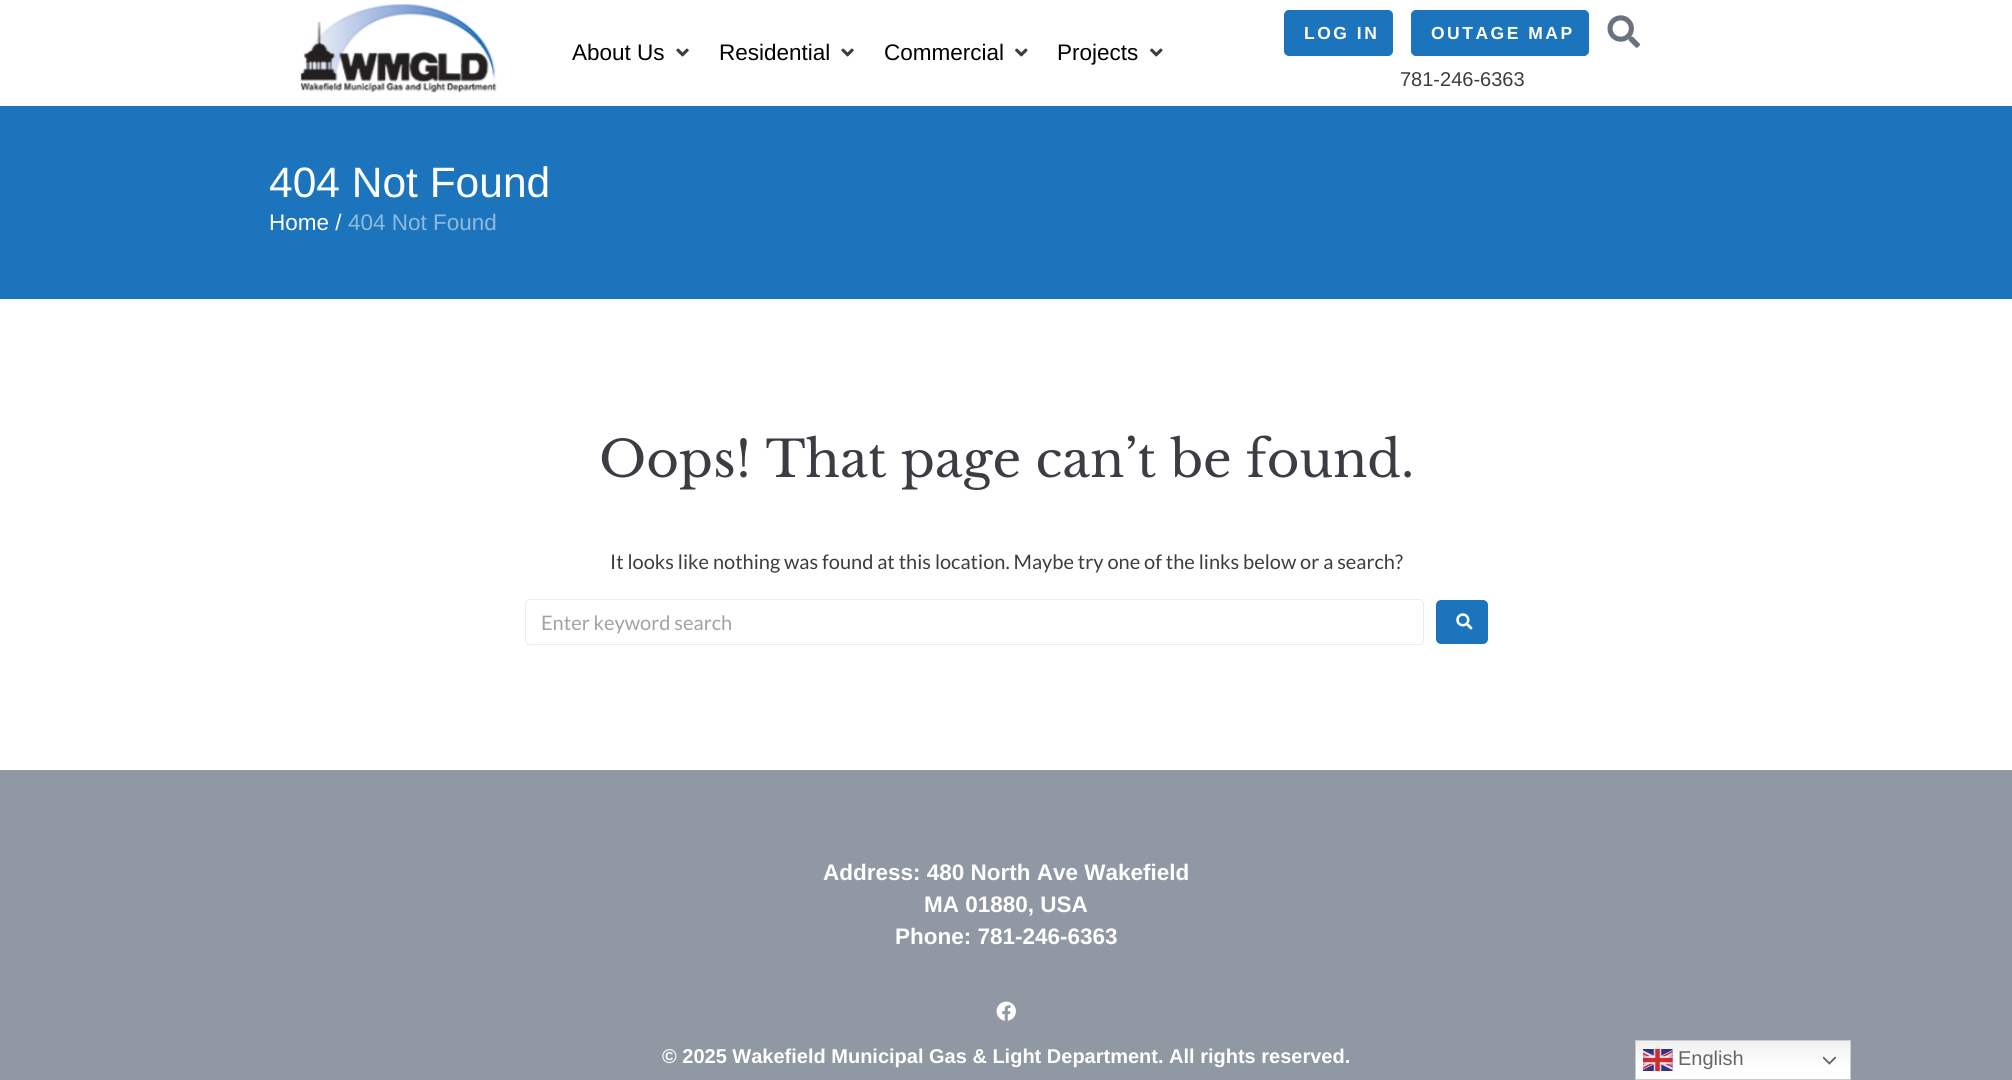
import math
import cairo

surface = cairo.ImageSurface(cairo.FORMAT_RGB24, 2012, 1080)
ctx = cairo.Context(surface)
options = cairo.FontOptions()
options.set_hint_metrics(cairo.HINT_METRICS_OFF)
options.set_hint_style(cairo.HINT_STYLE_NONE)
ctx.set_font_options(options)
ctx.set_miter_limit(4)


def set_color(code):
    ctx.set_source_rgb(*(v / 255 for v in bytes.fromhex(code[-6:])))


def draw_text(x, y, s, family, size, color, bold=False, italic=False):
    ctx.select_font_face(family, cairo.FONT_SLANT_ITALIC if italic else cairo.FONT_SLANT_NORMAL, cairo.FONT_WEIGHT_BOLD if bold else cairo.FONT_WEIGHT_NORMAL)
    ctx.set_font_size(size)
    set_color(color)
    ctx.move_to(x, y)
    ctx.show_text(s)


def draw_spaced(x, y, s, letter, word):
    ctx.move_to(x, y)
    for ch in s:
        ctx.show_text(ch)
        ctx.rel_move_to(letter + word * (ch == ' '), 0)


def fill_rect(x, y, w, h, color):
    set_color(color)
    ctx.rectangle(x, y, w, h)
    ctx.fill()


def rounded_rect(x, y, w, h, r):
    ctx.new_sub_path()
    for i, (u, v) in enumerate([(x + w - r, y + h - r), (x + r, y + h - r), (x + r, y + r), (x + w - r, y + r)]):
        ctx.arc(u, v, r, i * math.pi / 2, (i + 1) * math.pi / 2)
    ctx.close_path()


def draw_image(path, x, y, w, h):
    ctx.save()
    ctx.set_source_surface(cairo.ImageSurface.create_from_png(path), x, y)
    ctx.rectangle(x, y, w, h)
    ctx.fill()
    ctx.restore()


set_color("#ffffff")
ctx.paint()
draw_image("assets/img1.png", 300, 4, 197, 89)
draw_text(572, 60, "About Us", "Liberation Sans", 22.5, "#000000")
draw_image("assets/img2.png", 676, 48, 13, 9)
draw_text(719, 60, "Residential", "Liberation Sans", 22.5, "#000000")
draw_image("assets/img2.png", 841, 48, 13, 9)
draw_text(884, 60, "Commercial", "Liberation Sans", 22.5, "#000000")
draw_image("assets/img3.png", 1015, 48, 13, 9)
draw_text(1057, 60, "Projects", "Liberation Sans", 22.5, "#000000")
draw_image("assets/img3.png", 1150, 48, 13, 9)
set_color("#1c75bc")
rounded_rect(1284.5, 10.5, 108, 45, 4.5)
ctx.fill_preserve()
ctx.set_line_width(1)
ctx.stroke()
ctx.select_font_face("Liberation Sans", cairo.FONT_SLANT_NORMAL, cairo.FONT_WEIGHT_BOLD)
ctx.set_font_size(17.5)
set_color("#ffffff")
draw_spaced(1304, 39, "LOG IN", 2.5, 0)
set_color("#1c75bc")
rounded_rect(1411.5, 10.5, 177, 45, 4.5)
ctx.fill_preserve()
ctx.stroke()
set_color("#ffffff")
draw_spaced(1431, 39, "OUTAGE MAP", 2.5, 0)
draw_image("assets/img4.png", 1607, 15, 33, 33)
draw_text(1400, 86, "781-246-6363", "Liberation Sans", 20, "#3b3d42")
fill_rect(0, 106, 2012, 193, "#1c75bc")
draw_text(269, 197, "404 Not Found", "Liberation Sans", 42.5, "#ffffff")
draw_text(269, 230, "Home /", "Liberation Sans", 22.5, "#ffffff")
draw_text(348, 230, "404 Not Found", "Liberation Sans", 22.5, "#8ebade")
draw_text(599, 477, "Oops! That page can’t be found.", "Libre Baskerville", 50, "#3b3d42")
draw_text(610, 569, "It looks like nothing was found at this location. Maybe try one of the links below or a search?", "Lato", 20, "#3b3d42")
rounded_rect(525.5, 599.5, 898, 45, 4.5)
set_color("#ebeced")
ctx.stroke()
draw_text(541, 630, "Enter keyword search", "Lato", 20, "#a1a2a4")
set_color("#1c75bc")
rounded_rect(1436, 600, 52, 44, 5)
ctx.fill()
draw_image("assets/img5.png", 1456, 613, 17, 17)
fill_rect(0, 770, 2012, 310, "#8f98a3")
draw_text(823, 880, "Address: 480 North Ave Wakefield", "Liberation Sans", 22.5, "#ffffff", bold=True)
draw_text(924, 912, "MA 01880, USA", "Liberation Sans", 22.5, "#ffffff", bold=True)
draw_text(895, 944, "Phone: 781-246-6363", "Liberation Sans", 22.5, "#ffffff", bold=True)
draw_image("assets/img6.png", 996, 1001, 20, 20)
draw_text(662, 1063, "© 2025 Wakefield Municipal Gas & Light Department. All rights reserved.", "Liberation Sans", 20, "#ffffff", bold=True)
gradient = cairo.LinearGradient(1743, 1040, 1743, 1080)
gradient.add_color_stop_rgba(0, 0.937, 0.937, 0.937, 1)
gradient.add_color_stop_rgba(0.7, 1, 1, 1, 1)
ctx.set_source(gradient)
ctx.rectangle(1636, 1041, 214, 38)
ctx.fill()
ctx.rectangle(1635.5, 1040.5, 215, 39)
set_color("#cccccc")
ctx.stroke()
draw_image("assets/img7.png", 1643, 1048, 30, 24)
draw_text(1678, 1065, "English", "Liberation Sans", 20, "#666666")
draw_image("assets/img8.png", 1823, 1056, 13, 9)
surface.write_to_png("output.png")
